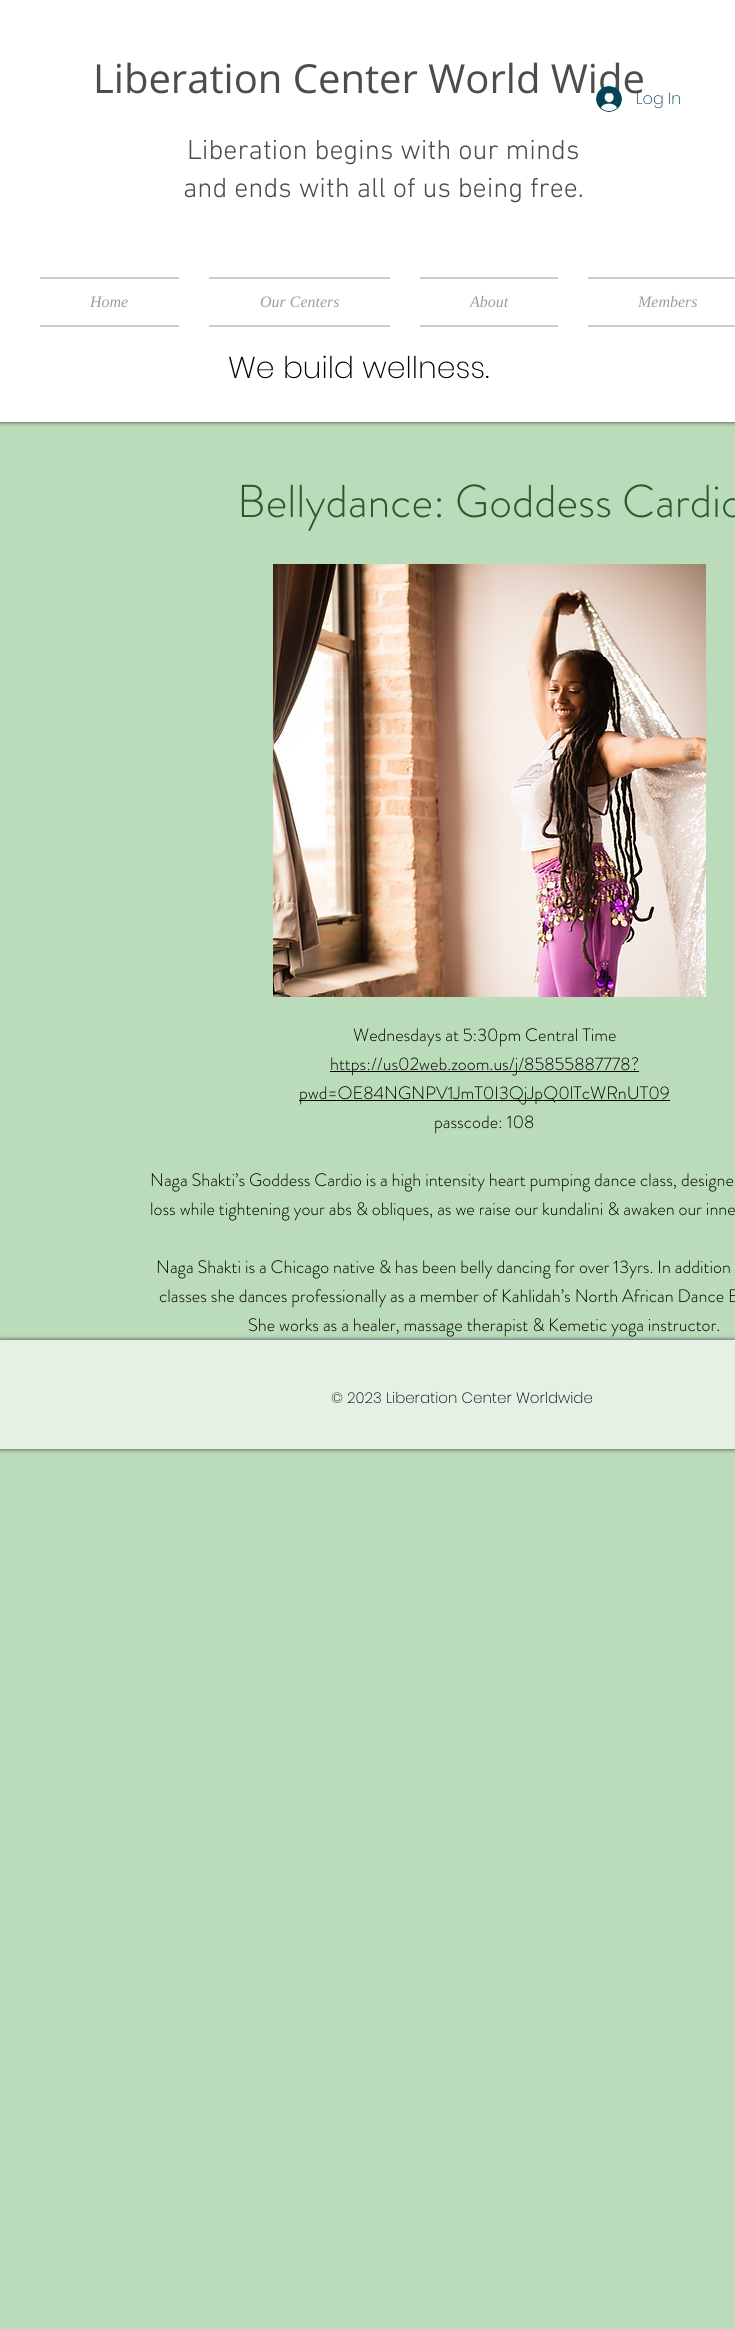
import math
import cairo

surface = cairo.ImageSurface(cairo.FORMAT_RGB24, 735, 2329)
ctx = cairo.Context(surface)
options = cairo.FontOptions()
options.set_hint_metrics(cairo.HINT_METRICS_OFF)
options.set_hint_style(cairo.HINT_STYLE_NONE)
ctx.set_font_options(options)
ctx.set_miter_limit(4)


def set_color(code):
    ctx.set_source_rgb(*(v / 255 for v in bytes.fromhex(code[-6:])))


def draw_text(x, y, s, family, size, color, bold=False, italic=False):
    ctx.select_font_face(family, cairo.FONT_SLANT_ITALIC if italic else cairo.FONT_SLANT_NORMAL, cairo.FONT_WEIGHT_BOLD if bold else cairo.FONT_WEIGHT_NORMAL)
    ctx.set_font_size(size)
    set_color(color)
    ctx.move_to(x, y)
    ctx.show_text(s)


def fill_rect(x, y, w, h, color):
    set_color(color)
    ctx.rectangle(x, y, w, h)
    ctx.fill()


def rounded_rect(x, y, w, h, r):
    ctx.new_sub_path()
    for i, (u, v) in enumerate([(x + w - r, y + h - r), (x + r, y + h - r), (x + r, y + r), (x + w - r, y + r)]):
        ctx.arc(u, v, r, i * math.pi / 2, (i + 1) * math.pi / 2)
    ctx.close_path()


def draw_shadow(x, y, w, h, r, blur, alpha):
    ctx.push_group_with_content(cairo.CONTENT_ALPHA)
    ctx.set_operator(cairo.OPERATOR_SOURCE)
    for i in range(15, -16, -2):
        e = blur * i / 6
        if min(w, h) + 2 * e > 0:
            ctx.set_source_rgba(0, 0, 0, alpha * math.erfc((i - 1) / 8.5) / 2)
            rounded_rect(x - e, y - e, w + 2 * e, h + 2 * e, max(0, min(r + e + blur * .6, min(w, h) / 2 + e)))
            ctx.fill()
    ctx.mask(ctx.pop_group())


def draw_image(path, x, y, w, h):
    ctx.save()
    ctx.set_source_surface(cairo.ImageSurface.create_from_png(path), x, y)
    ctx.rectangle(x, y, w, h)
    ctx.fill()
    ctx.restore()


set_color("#bbdcbb")
ctx.paint()
set_color("#000000")
draw_shadow(0, 0, 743, 422, 0, 2.5, 0.7)
fill_rect(0, 0, 735, 422, "#ffffff")
draw_text(93, 93, "Liberation Center World Wide", "Open Sans", 40, "#4c4c4c")
draw_text(187, 159, "Liberation begins with our minds", "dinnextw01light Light", 28, "#4c4c4c")
draw_text(183, 197, "and ends with all of us being free.", "dinnextw01light Light", 28, "#4c4c4c")
fill_rect(40, 277, 139, 2, "#cccccc")
fill_rect(40, 325, 139, 2, "#cccccc")
draw_text(90, 307, "Home", "Liberation Serif", 16, "#9e9e9e", italic=True)
fill_rect(209, 277, 181, 2, "#cccccc")
fill_rect(209, 325, 181, 2, "#cccccc")
draw_text(260, 307, "Our Centers", "Liberation Serif", 16, "#9e9e9e", italic=True)
fill_rect(420, 277, 138, 2, "#cccccc")
fill_rect(420, 325, 138, 2, "#cccccc")
draw_text(470, 307, "About", "Liberation Serif", 16, "#9e9e9e", italic=True)
fill_rect(588, 277, 147, 2, "#cccccc")
fill_rect(588, 325, 147, 2, "#cccccc")
draw_text(638, 307, "Members", "Liberation Serif", 16, "#9e9e9e", italic=True)
draw_text(228, 378, "We build wellness.", "Poppins ExtraLight", 30, "#000000")
draw_image("assets/img1.png", 596, 86, 26, 26)
draw_text(636, 104, "Log In", "Poppins ExtraLight", 16, "#034459")
draw_text(237, 517, "Bellydance: Goddess Cardio", "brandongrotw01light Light", 46, "#2d582d")
draw_image("assets/img2.png", 273, 564, 433, 433)
draw_text(353, 1041, "Wednesdays at 5:30pm Central Time", "brandongrotw01light Light", 18, "#000000")
fill_rect(330, 1071, 309, 1, "#000000")
draw_text(330, 1070, "https://us02web.zoom.us/j/85855887778?", "brandongrotw01light Light", 18, "#000000")
fill_rect(299, 1100, 371, 1, "#000000")
draw_text(299, 1099, "pwd=OE84NGNPV1JmT0I3QjJpQ0lTcWRnUT09", "brandongrotw01light Light", 18, "#000000")
draw_text(434, 1128, "passcode: 108", "brandongrotw01light Light", 18, "#000000")
draw_text(150, 1186, "Naga Shakti’s Goddess Cardio is a high intensity heart pumping dance class, designe", "brandongrotw01light Light", 18, "#000000")
draw_text(150, 1215, "loss while tightening your abs & obliques, as we raise our kundalini & awaken our inne", "brandongrotw01light Light", 18, "#000000")
draw_text(156, 1273, "Naga Shakti is a Chicago native & has been belly dancing for over 13yrs. In addition", "brandongrotw01light Light", 18, "#000000")
draw_text(159, 1302, "classes she dances professionally as a member of Kahlidah’s North African Dance E", "brandongrotw01light Light", 18, "#000000")
draw_text(248, 1331, "She works as a healer, massage therapist & Kemetic yoga instructor.", "brandongrotw01light Light", 18, "#000000")
set_color("#000000")
draw_shadow(0, 1340, 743, 109, 0, 2.5, 0.7)
fill_rect(0, 1340, 735, 109, "#e4f1e4")
draw_text(331, 1403, "© 2023 Liberation Center Worldwide", "Poppins ExtraLight", 15, "#000000")
surface.write_to_png("output.png")
